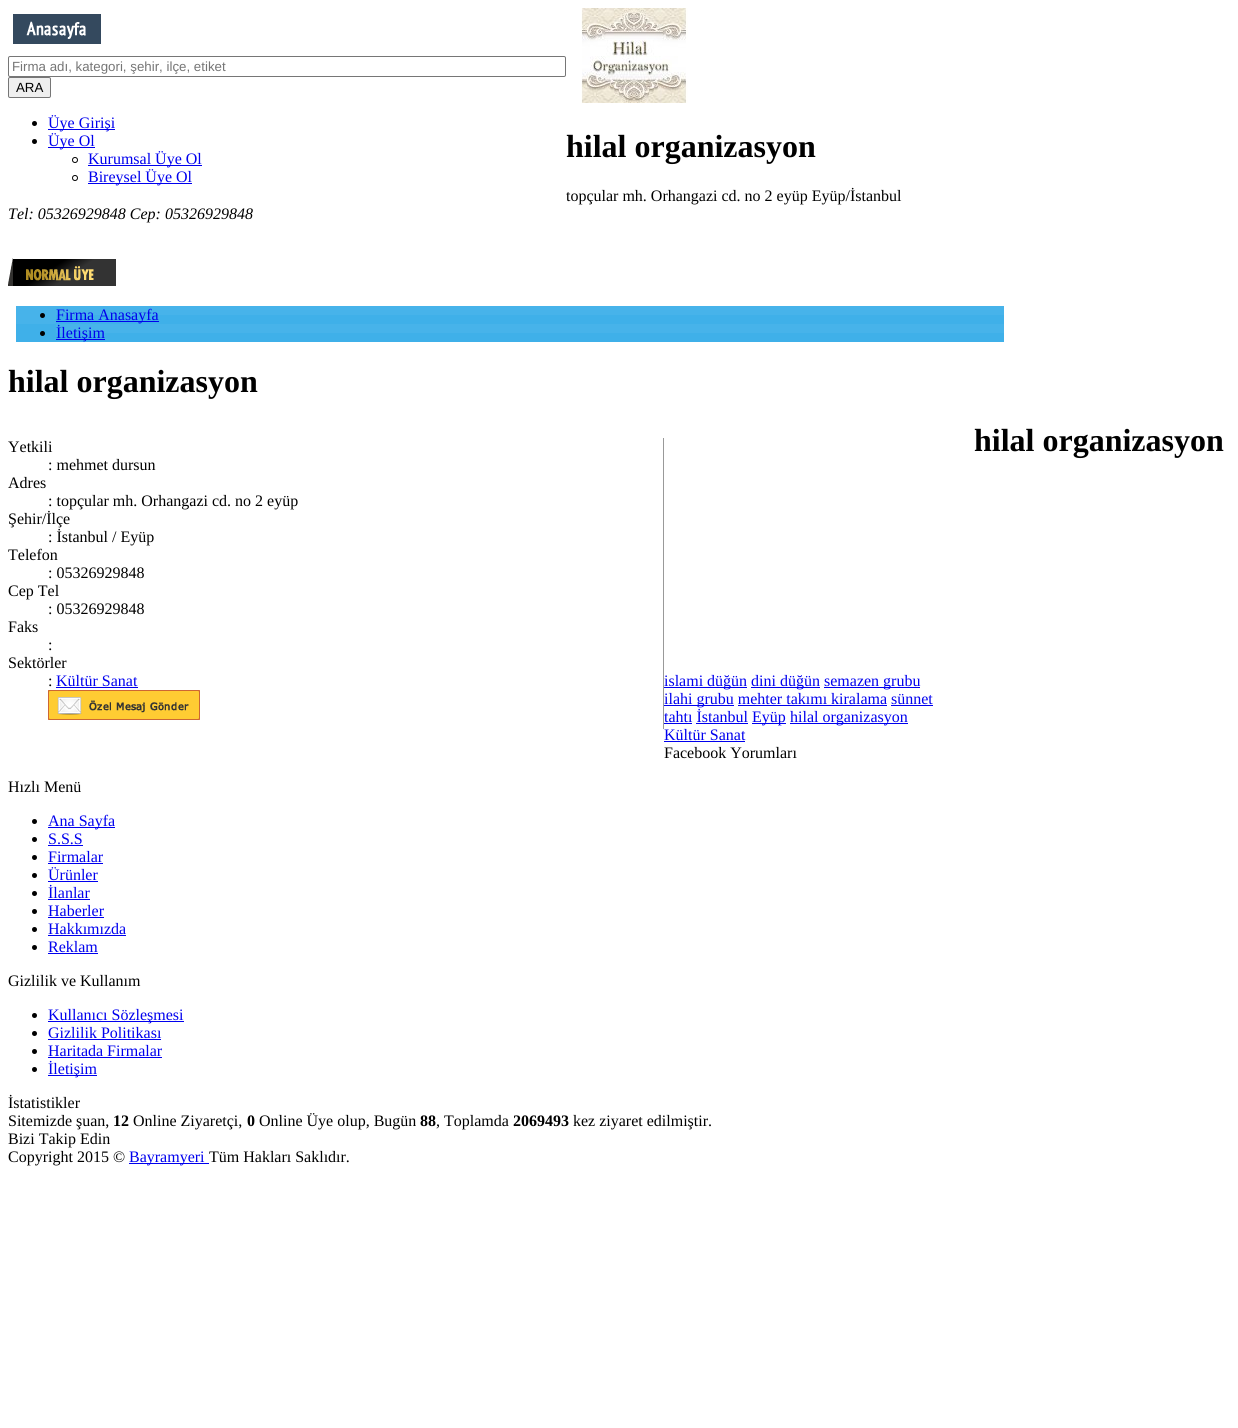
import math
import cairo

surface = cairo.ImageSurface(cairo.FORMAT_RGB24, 1238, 1428)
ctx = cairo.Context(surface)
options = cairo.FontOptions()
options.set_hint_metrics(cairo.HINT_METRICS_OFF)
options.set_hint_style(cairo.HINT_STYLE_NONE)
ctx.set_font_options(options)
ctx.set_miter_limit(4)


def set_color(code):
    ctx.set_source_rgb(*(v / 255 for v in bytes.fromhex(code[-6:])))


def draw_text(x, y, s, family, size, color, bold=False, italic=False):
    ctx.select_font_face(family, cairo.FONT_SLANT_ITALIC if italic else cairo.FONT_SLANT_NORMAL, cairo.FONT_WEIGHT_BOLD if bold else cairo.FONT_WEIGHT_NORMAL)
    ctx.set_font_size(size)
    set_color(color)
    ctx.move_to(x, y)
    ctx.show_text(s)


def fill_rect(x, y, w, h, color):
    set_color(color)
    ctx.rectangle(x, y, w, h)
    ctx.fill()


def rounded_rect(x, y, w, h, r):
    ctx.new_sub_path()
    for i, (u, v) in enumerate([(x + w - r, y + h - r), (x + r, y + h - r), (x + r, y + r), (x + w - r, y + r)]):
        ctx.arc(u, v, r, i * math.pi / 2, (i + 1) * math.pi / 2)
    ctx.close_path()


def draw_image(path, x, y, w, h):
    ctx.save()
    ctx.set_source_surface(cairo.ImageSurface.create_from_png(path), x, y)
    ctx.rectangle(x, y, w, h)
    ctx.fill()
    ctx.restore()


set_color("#ffffff")
ctx.paint()
draw_image("assets/img1.png", 13, 14, 88, 30)
rounded_rect(8.5, 56.5, 557, 20, 1.5)
set_color("#767676")
ctx.set_line_width(1)
ctx.stroke()
draw_text(12, 71, "Firma adı, kategori, şehir, ilçe, etiket", "Liberation Sans", 13.3, "#757575")
set_color("#efefef")
rounded_rect(8.5, 77.5, 42, 20, 1.5)
ctx.fill_preserve()
set_color("#767676")
ctx.stroke()
draw_text(16, 92, "ARA", "Liberation Sans", 13.3, "#000000")
ctx.new_path()
ctx.arc(34.5, 123.5, 2.5, 0, 2 * math.pi)
ctx.fill()
fill_rect(48, 129, 67, 1, "#0000ee")
draw_text(48, 128, "Üye Girişi", "Liberation Serif", 16, "#0000ee")
set_color("#000000")
ctx.new_path()
ctx.arc(34.5, 141.5, 2.5, 0, 2 * math.pi)
ctx.fill()
fill_rect(48, 147, 47, 1, "#0000ee")
draw_text(48, 146, "Üye Ol", "Liberation Serif", 16, "#0000ee")
ctx.new_path()
ctx.arc(75, 160, 2.5, 0, 2 * math.pi)
set_color("#000000")
ctx.stroke()
fill_rect(88, 165, 114, 1, "#0000ee")
draw_text(88, 164, "Kurumsal Üye Ol", "Liberation Serif", 16, "#0000ee")
ctx.new_path()
ctx.arc(75, 178, 2.5, 0, 2 * math.pi)
set_color("#000000")
ctx.stroke()
fill_rect(88, 183, 104, 1, "#0000ee")
draw_text(88, 182, "Bireysel Üye Ol", "Liberation Serif", 16, "#0000ee")
draw_image("assets/img2.png", 581, 8, 107, 95)
draw_text(566, 157, "hilal organizasyon", "Liberation Serif", 32, "#000000", bold=True)
draw_text(566, 201, "topçular mh. Orhangazi cd. no 2 eyüp Eyüp/İstanbul", "Liberation Serif", 16, "#000000")
draw_text(8, 219, "Tel: 05326929848 Cep: 05326929848", "Liberation Serif", 16, "#000000", italic=True)
draw_image("assets/img3.png", 8, 258, 108, 28)
fill_rect(16, 324, 988, 18, "#3fb0e9")
fill_rect(16, 306, 40, 18, "#47b3ea")
fill_rect(56, 315, 948, 9, "#3fb0e9")
fill_rect(56, 306, 948, 9, "#47b3ea")
set_color("#000000")
ctx.arc(42.5, 315.5, 2.5, 0, 2 * math.pi)
ctx.fill()
fill_rect(56, 321, 103, 1, "#0000ee")
draw_text(56, 320, "Firma Anasayfa", "Liberation Serif", 16, "#0000ee")
fill_rect(56, 324, 948, 9, "#47b3ea")
set_color("#000000")
ctx.new_path()
ctx.arc(42.5, 333.5, 2.5, 0, 2 * math.pi)
ctx.fill()
fill_rect(56, 339, 49, 1, "#0000ee")
draw_text(56, 338, "İletişim", "Liberation Serif", 16, "#0000ee")
draw_text(8, 392, "hilal organizasyon", "Liberation Serif", 32, "#000000", bold=True)
fill_rect(663, 438, 1, 291, "#999999")
draw_text(8, 452, "Yetkili", "Liberation Serif", 16, "#000000")
draw_text(48, 470, ": mehmet dursun", "Liberation Serif", 16, "#000000")
draw_text(8, 488, "Adres", "Liberation Serif", 16, "#000000")
draw_text(48, 506, ": topçular mh. Orhangazi cd. no 2 eyüp", "Liberation Serif", 16, "#000000")
draw_text(8, 524, "Şehir/İlçe", "Liberation Serif", 16, "#000000")
draw_text(48, 542, ": İstanbul / Eyüp", "Liberation Serif", 16, "#000000")
draw_text(8, 560, "Telefon", "Liberation Serif", 16, "#000000")
draw_text(48, 578, ": 05326929848", "Liberation Serif", 16, "#000000")
draw_text(8, 596, "Cep Tel", "Liberation Serif", 16, "#000000")
draw_text(48, 614, ": 05326929848", "Liberation Serif", 16, "#000000")
draw_text(8, 632, "Faks", "Liberation Serif", 16, "#000000")
draw_text(48, 650, ":", "Liberation Serif", 16, "#000000")
draw_text(8, 668, "Sektörler", "Liberation Serif", 16, "#000000")
draw_text(48, 686, ":", "Liberation Serif", 16, "#000000")
draw_text(56, 686, "Kültür Sanat", "Liberation Serif", 16, "#0000ee")
fill_rect(56, 687, 82, 1, "#0000ee")
draw_image("assets/img4.png", 48, 690, 152, 30)
draw_text(974, 451, "hilal organizasyon", "Liberation Serif", 32, "#000000", bold=True)
fill_rect(664, 687, 83, 1, "#0000ee")
draw_text(664, 686, "islami düğün", "Liberation Serif", 16, "#0000ee")
fill_rect(751, 687, 69, 1, "#0000ee")
draw_text(751, 686, "dini düğün", "Liberation Serif", 16, "#0000ee")
fill_rect(824, 687, 96, 1, "#0000ee")
draw_text(824, 686, "semazen grubu", "Liberation Serif", 16, "#0000ee")
fill_rect(664, 705, 70, 1, "#0000ee")
draw_text(664, 704, "ilahi grubu mehter takımı kiralama sünnet", "Liberation Serif", 16, "#0000ee")
fill_rect(738, 705, 149, 1, "#0000ee")
draw_text(664, 722, "tahtı İstanbul", "Liberation Serif", 16, "#0000ee")
fill_rect(891, 705, 42, 1, "#0000ee")
fill_rect(664, 723, 28, 1, "#0000ee")
fill_rect(752, 723, 34, 1, "#0000ee")
draw_text(752, 722, "Eyüp", "Liberation Serif", 16, "#0000ee")
fill_rect(790, 723, 118, 1, "#0000ee")
draw_text(790, 722, "hilal organizasyon", "Liberation Serif", 16, "#0000ee")
fill_rect(696, 723, 52, 1, "#0000ee")
draw_text(664, 740, "Kültür Sanat", "Liberation Serif", 16, "#0000ee")
fill_rect(664, 741, 81, 1, "#0000ee")
draw_text(664, 758, "Facebook Yorumları", "Liberation Serif", 16, "#000000")
draw_text(8, 792, "Hızlı Menü", "Liberation Serif", 16, "#000000")
ctx.new_path()
ctx.arc(34.5, 821.5, 2.5, 0, 2 * math.pi)
ctx.fill()
fill_rect(48, 827, 67, 1, "#0000ee")
draw_text(48, 826, "Ana Sayfa", "Liberation Serif", 16, "#0000ee")
set_color("#000000")
ctx.new_path()
ctx.arc(34.5, 839.5, 2.5, 0, 2 * math.pi)
ctx.fill()
draw_text(48, 844, "S.S.S", "Liberation Serif", 16, "#0000ee")
fill_rect(48, 845, 35, 1, "#0000ee")
set_color("#000000")
ctx.new_path()
ctx.arc(34.5, 857.5, 2.5, 0, 2 * math.pi)
ctx.fill()
draw_text(48, 862, "Firmalar", "Liberation Serif", 16, "#0000ee")
fill_rect(48, 863, 55, 1, "#0000ee")
set_color("#000000")
ctx.new_path()
ctx.arc(34.5, 875.5, 2.5, 0, 2 * math.pi)
ctx.fill()
draw_text(48, 880, "Ürünler", "Liberation Serif", 16, "#0000ee")
fill_rect(48, 881, 50, 1, "#0000ee")
set_color("#000000")
ctx.new_path()
ctx.arc(34.5, 893.5, 2.5, 0, 2 * math.pi)
ctx.fill()
draw_text(48, 898, "İlanlar", "Liberation Serif", 16, "#0000ee")
fill_rect(48, 899, 42, 1, "#0000ee")
set_color("#000000")
ctx.new_path()
ctx.arc(34.5, 911.5, 2.5, 0, 2 * math.pi)
ctx.fill()
draw_text(48, 916, "Haberler", "Liberation Serif", 16, "#0000ee")
fill_rect(48, 917, 56, 1, "#0000ee")
set_color("#000000")
ctx.new_path()
ctx.arc(34.5, 929.5, 2.5, 0, 2 * math.pi)
ctx.fill()
draw_text(48, 934, "Hakkımızda", "Liberation Serif", 16, "#0000ee")
fill_rect(48, 935, 78, 1, "#0000ee")
set_color("#000000")
ctx.new_path()
ctx.arc(34.5, 947.5, 2.5, 0, 2 * math.pi)
ctx.fill()
draw_text(48, 952, "Reklam", "Liberation Serif", 16, "#0000ee")
fill_rect(48, 953, 50, 1, "#0000ee")
draw_text(8, 986, "Gizlilik ve Kullanım", "Liberation Serif", 16, "#000000")
ctx.new_path()
ctx.arc(34.5, 1015.5, 2.5, 0, 2 * math.pi)
ctx.fill()
fill_rect(48, 1021, 136, 1, "#0000ee")
draw_text(48, 1020, "Kullanıcı Sözleşmesi", "Liberation Serif", 16, "#0000ee")
set_color("#000000")
ctx.new_path()
ctx.arc(34.5, 1033.5, 2.5, 0, 2 * math.pi)
ctx.fill()
draw_text(48, 1038, "Gizlilik Politikası", "Liberation Serif", 16, "#0000ee")
fill_rect(48, 1039, 113, 1, "#0000ee")
set_color("#000000")
ctx.new_path()
ctx.arc(34.5, 1051.5, 2.5, 0, 2 * math.pi)
ctx.fill()
draw_text(48, 1056, "Haritada Firmalar", "Liberation Serif", 16, "#0000ee")
fill_rect(48, 1057, 114, 1, "#0000ee")
set_color("#000000")
ctx.new_path()
ctx.arc(34.5, 1069.5, 2.5, 0, 2 * math.pi)
ctx.fill()
fill_rect(48, 1075, 49, 1, "#0000ee")
draw_text(48, 1074, "İletişim", "Liberation Serif", 16, "#0000ee")
draw_text(8, 1108, "İstatistikler", "Liberation Serif", 16, "#000000")
draw_text(8, 1126, "Sitemizde şuan,", "Liberation Serif", 16, "#000000")
draw_text(113, 1126, "12", "Liberation Serif", 16, "#000000", bold=True)
draw_text(133, 1126, "Online Ziyaretçi,", "Liberation Serif", 16, "#000000")
draw_text(247, 1126, "0", "Liberation Serif", 16, "#000000", bold=True)
draw_text(259, 1126, "Online Üye olup, Bugün", "Liberation Serif", 16, "#000000")
draw_text(420, 1126, "88", "Liberation Serif", 16, "#000000", bold=True)
draw_text(436, 1126, ", Toplamda", "Liberation Serif", 16, "#000000")
draw_text(513, 1126, "2069493", "Liberation Serif", 16, "#000000", bold=True)
draw_text(573, 1126, "kez ziyaret edilmiştir.", "Liberation Serif", 16, "#000000")
draw_text(8, 1144, "Bizi Takip Edin", "Liberation Serif", 16, "#000000")
draw_text(8, 1162, "Copyright 2015 ©", "Liberation Serif", 16, "#000000")
fill_rect(129, 1163, 80, 1, "#0000ee")
draw_text(129, 1162, "Bayramyeri", "Liberation Serif", 16, "#0000ee")
draw_text(209, 1162, "Tüm Hakları Saklıdır.", "Liberation Serif", 16, "#000000")
surface.write_to_png("output.png")
